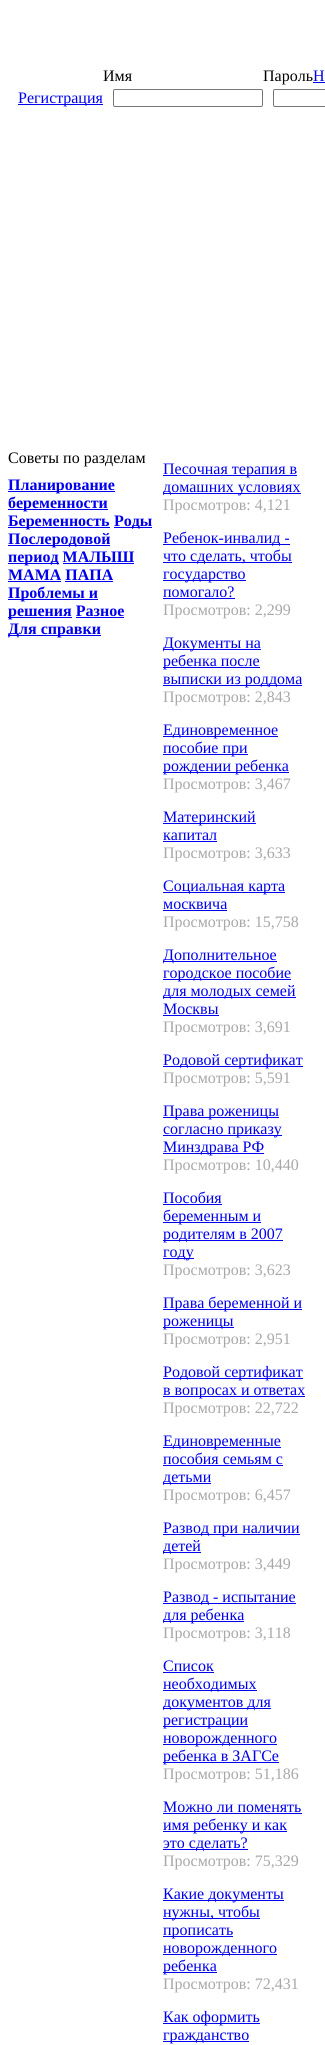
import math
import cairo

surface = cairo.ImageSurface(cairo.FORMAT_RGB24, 325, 2045)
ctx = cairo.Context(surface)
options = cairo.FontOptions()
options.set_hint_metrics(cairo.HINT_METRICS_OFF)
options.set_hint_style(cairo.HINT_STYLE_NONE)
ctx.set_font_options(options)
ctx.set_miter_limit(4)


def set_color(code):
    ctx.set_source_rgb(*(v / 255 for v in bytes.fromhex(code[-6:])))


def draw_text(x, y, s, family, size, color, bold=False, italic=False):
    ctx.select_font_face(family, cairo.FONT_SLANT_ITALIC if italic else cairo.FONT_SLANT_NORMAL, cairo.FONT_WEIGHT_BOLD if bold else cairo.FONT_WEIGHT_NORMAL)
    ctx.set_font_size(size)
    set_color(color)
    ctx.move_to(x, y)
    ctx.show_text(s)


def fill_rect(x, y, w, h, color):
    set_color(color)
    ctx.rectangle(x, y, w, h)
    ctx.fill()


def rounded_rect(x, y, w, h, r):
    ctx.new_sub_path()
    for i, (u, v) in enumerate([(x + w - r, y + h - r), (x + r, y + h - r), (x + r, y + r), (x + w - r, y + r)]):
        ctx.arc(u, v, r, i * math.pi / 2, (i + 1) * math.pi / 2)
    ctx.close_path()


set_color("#ffffff")
ctx.paint()
draw_text(103, 81, "Имя", "Liberation Serif", 16, "#000000")
draw_text(263, 81, "Пароль", "Liberation Serif", 16, "#000000")
draw_text(313, 81, "Н", "Liberation Serif", 16, "#0000ee")
fill_rect(313, 82, 12, 1, "#0000ee")
fill_rect(18, 104, 85, 1, "#0000ee")
draw_text(18, 103, "Регистрация", "Liberation Serif", 16, "#0000ee")
rounded_rect(113.5, 89.5, 149, 17, 1.5)
set_color("#767676")
ctx.set_line_width(1)
ctx.stroke()
rounded_rect(273.5, 89.5, 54, 17, 1.5)
ctx.stroke()
draw_text(8, 463, "Советы по разделам", "Liberation Serif", 16, "#000000")
fill_rect(8, 491, 107, 1, "#0000ee")
draw_text(8, 490, "Планирование", "Liberation Serif", 16, "#0000ee", bold=True)
fill_rect(8, 509, 100, 1, "#0000ee")
draw_text(8, 508, "беременности", "Liberation Serif", 16, "#0000ee", bold=True)
fill_rect(8, 527, 102, 1, "#0000ee")
draw_text(8, 526, "Беременность", "Liberation Serif", 16, "#0000ee", bold=True)
fill_rect(114, 527, 38, 1, "#0000ee")
draw_text(114, 526, "Роды", "Liberation Serif", 16, "#0000ee", bold=True)
fill_rect(8, 545, 102, 1, "#0000ee")
draw_text(8, 544, "Послеродовой", "Liberation Serif", 16, "#0000ee", bold=True)
fill_rect(8, 563, 51, 1, "#0000ee")
draw_text(8, 562, "период МАЛЫШ", "Liberation Serif", 16, "#0000ee", bold=True)
fill_rect(63, 563, 71, 1, "#0000ee")
draw_text(8, 580, "МАМА ПАПА", "Liberation Serif", 16, "#0000ee", bold=True)
fill_rect(8, 581, 53, 1, "#0000ee")
fill_rect(65, 581, 48, 1, "#0000ee")
fill_rect(8, 599, 90, 1, "#0000ee")
draw_text(8, 598, "Проблемы и", "Liberation Serif", 16, "#0000ee", bold=True)
fill_rect(8, 617, 64, 1, "#0000ee")
draw_text(8, 616, "решения Разное", "Liberation Serif", 16, "#0000ee", bold=True)
fill_rect(76, 617, 48, 1, "#0000ee")
fill_rect(8, 635, 93, 1, "#0000ee")
draw_text(8, 634, "Для справки", "Liberation Serif", 16, "#0000ee", bold=True)
fill_rect(163, 475, 134, 1, "#0000ee")
draw_text(163, 474, "Песочная терапия в", "Liberation Serif", 16, "#0000ee")
fill_rect(163, 493, 138, 1, "#0000ee")
draw_text(163, 492, "домашних условиях", "Liberation Serif", 16, "#0000ee")
draw_text(163, 510, "Просмотров: 4,121", "Liberation Serif", 16, "#a8a8a8")
fill_rect(163, 544, 127, 1, "#0000ee")
draw_text(163, 543, "Ребенок-инвалид -", "Liberation Serif", 16, "#0000ee")
fill_rect(163, 562, 129, 1, "#0000ee")
draw_text(163, 561, "что сделать, чтобы", "Liberation Serif", 16, "#0000ee")
fill_rect(163, 580, 83, 1, "#0000ee")
draw_text(163, 579, "государство", "Liberation Serif", 16, "#0000ee")
draw_text(163, 597, "помогало?", "Liberation Serif", 16, "#0000ee")
fill_rect(163, 598, 72, 1, "#0000ee")
draw_text(163, 615, "Просмотров: 2,299", "Liberation Serif", 16, "#a8a8a8")
fill_rect(163, 649, 98, 1, "#0000ee")
draw_text(163, 648, "Документы на", "Liberation Serif", 16, "#0000ee")
fill_rect(163, 667, 97, 1, "#0000ee")
draw_text(163, 666, "ребенка после", "Liberation Serif", 16, "#0000ee")
fill_rect(163, 685, 139, 1, "#0000ee")
draw_text(163, 684, "выписки из роддома", "Liberation Serif", 16, "#0000ee")
draw_text(163, 702, "Просмотров: 2,843", "Liberation Serif", 16, "#a8a8a8")
fill_rect(163, 736, 115, 1, "#0000ee")
draw_text(163, 735, "Единовременное", "Liberation Serif", 16, "#0000ee")
fill_rect(163, 754, 85, 1, "#0000ee")
draw_text(163, 753, "пособие при", "Liberation Serif", 16, "#0000ee")
fill_rect(163, 772, 126, 1, "#0000ee")
draw_text(163, 771, "рождении ребенка", "Liberation Serif", 16, "#0000ee")
draw_text(163, 789, "Просмотров: 3,467", "Liberation Serif", 16, "#a8a8a8")
fill_rect(163, 823, 93, 1, "#0000ee")
draw_text(163, 822, "Материнский", "Liberation Serif", 16, "#0000ee")
draw_text(163, 840, "капитал", "Liberation Serif", 16, "#0000ee")
fill_rect(163, 841, 54, 1, "#0000ee")
draw_text(163, 858, "Просмотров: 3,633", "Liberation Serif", 16, "#a8a8a8")
fill_rect(163, 892, 122, 1, "#0000ee")
draw_text(163, 891, "Социальная карта", "Liberation Serif", 16, "#0000ee")
draw_text(163, 909, "москвича", "Liberation Serif", 16, "#0000ee")
fill_rect(163, 910, 64, 1, "#0000ee")
draw_text(163, 927, "Просмотров: 15,758", "Liberation Serif", 16, "#a8a8a8")
fill_rect(163, 961, 114, 1, "#0000ee")
draw_text(163, 960, "Дополнительное", "Liberation Serif", 16, "#0000ee")
fill_rect(163, 979, 128, 1, "#0000ee")
draw_text(163, 978, "городское пособие", "Liberation Serif", 16, "#0000ee")
fill_rect(163, 997, 133, 1, "#0000ee")
draw_text(163, 996, "для молодых семей", "Liberation Serif", 16, "#0000ee")
draw_text(163, 1014, "Москвы", "Liberation Serif", 16, "#0000ee")
fill_rect(163, 1015, 56, 1, "#0000ee")
draw_text(163, 1032, "Просмотров: 3,691", "Liberation Serif", 16, "#a8a8a8")
fill_rect(163, 1066, 140, 1, "#0000ee")
draw_text(163, 1065, "Родовой сертификат", "Liberation Serif", 16, "#0000ee")
draw_text(163, 1083, "Просмотров: 5,591", "Liberation Serif", 16, "#a8a8a8")
fill_rect(163, 1117, 116, 1, "#0000ee")
draw_text(163, 1116, "Права роженицы", "Liberation Serif", 16, "#0000ee")
fill_rect(163, 1135, 119, 1, "#0000ee")
draw_text(163, 1134, "согласно приказу", "Liberation Serif", 16, "#0000ee")
fill_rect(163, 1153, 101, 1, "#0000ee")
draw_text(163, 1152, "Минздрава РФ", "Liberation Serif", 16, "#0000ee")
draw_text(163, 1170, "Просмотров: 10,440", "Liberation Serif", 16, "#a8a8a8")
draw_text(163, 1203, "Пособия", "Liberation Serif", 16, "#0000ee")
fill_rect(163, 1204, 59, 1, "#0000ee")
fill_rect(163, 1222, 98, 1, "#0000ee")
draw_text(163, 1221, "беременным и", "Liberation Serif", 16, "#0000ee")
fill_rect(163, 1240, 120, 1, "#0000ee")
draw_text(163, 1239, "родителям в 2007", "Liberation Serif", 16, "#0000ee")
fill_rect(163, 1258, 31, 1, "#0000ee")
draw_text(163, 1257, "году", "Liberation Serif", 16, "#0000ee")
draw_text(163, 1275, "Просмотров: 3,623", "Liberation Serif", 16, "#a8a8a8")
fill_rect(163, 1309, 139, 1, "#0000ee")
draw_text(163, 1308, "Права беременной и", "Liberation Serif", 16, "#0000ee")
fill_rect(163, 1327, 71, 1, "#0000ee")
draw_text(163, 1326, "роженицы", "Liberation Serif", 16, "#0000ee")
draw_text(163, 1344, "Просмотров: 2,951", "Liberation Serif", 16, "#a8a8a8")
fill_rect(163, 1378, 140, 1, "#0000ee")
draw_text(163, 1377, "Родовой сертификат", "Liberation Serif", 16, "#0000ee")
fill_rect(163, 1396, 142, 1, "#0000ee")
draw_text(163, 1395, "в вопросах и ответах", "Liberation Serif", 16, "#0000ee")
draw_text(163, 1413, "Просмотров: 22,722", "Liberation Serif", 16, "#a8a8a8")
fill_rect(163, 1447, 118, 1, "#0000ee")
draw_text(163, 1446, "Единовременные", "Liberation Serif", 16, "#0000ee")
draw_text(163, 1464, "пособия семьям с", "Liberation Serif", 16, "#0000ee")
fill_rect(163, 1465, 120, 1, "#0000ee")
fill_rect(163, 1483, 48, 1, "#0000ee")
draw_text(163, 1482, "детьми", "Liberation Serif", 16, "#0000ee")
draw_text(163, 1500, "Просмотров: 6,457", "Liberation Serif", 16, "#a8a8a8")
fill_rect(163, 1534, 137, 1, "#0000ee")
draw_text(163, 1533, "Развод при наличии", "Liberation Serif", 16, "#0000ee")
fill_rect(163, 1552, 38, 1, "#0000ee")
draw_text(163, 1551, "детей", "Liberation Serif", 16, "#0000ee")
draw_text(163, 1569, "Просмотров: 3,449", "Liberation Serif", 16, "#a8a8a8")
fill_rect(163, 1603, 133, 1, "#0000ee")
draw_text(163, 1602, "Развод - испытание", "Liberation Serif", 16, "#0000ee")
fill_rect(163, 1621, 81, 1, "#0000ee")
draw_text(163, 1620, "для ребенка", "Liberation Serif", 16, "#0000ee")
draw_text(163, 1638, "Просмотров: 3,118", "Liberation Serif", 16, "#a8a8a8")
draw_text(163, 1671, "Список", "Liberation Serif", 16, "#0000ee")
fill_rect(163, 1672, 51, 1, "#0000ee")
fill_rect(163, 1690, 94, 1, "#0000ee")
draw_text(163, 1689, "необходимых", "Liberation Serif", 16, "#0000ee")
fill_rect(163, 1708, 108, 1, "#0000ee")
draw_text(163, 1707, "документов для", "Liberation Serif", 16, "#0000ee")
fill_rect(163, 1726, 85, 1, "#0000ee")
draw_text(163, 1725, "регистрации", "Liberation Serif", 16, "#0000ee")
fill_rect(163, 1744, 114, 1, "#0000ee")
draw_text(163, 1743, "новорожденного", "Liberation Serif", 16, "#0000ee")
fill_rect(163, 1762, 116, 1, "#0000ee")
draw_text(163, 1761, "ребенка в ЗАГСе", "Liberation Serif", 16, "#0000ee")
draw_text(163, 1779, "Просмотров: 51,186", "Liberation Serif", 16, "#a8a8a8")
draw_text(163, 1812, "Можно ли поменять", "Liberation Serif", 16, "#0000ee")
fill_rect(163, 1813, 139, 1, "#0000ee")
fill_rect(163, 1831, 124, 1, "#0000ee")
draw_text(163, 1830, "имя ребенку и как", "Liberation Serif", 16, "#0000ee")
fill_rect(163, 1849, 85, 1, "#0000ee")
draw_text(163, 1848, "это сделать?", "Liberation Serif", 16, "#0000ee")
draw_text(163, 1866, "Просмотров: 75,329", "Liberation Serif", 16, "#a8a8a8")
fill_rect(163, 1900, 121, 1, "#0000ee")
draw_text(163, 1899, "Какие документы", "Liberation Serif", 16, "#0000ee")
fill_rect(163, 1918, 97, 1, "#0000ee")
draw_text(163, 1917, "нужны, чтобы", "Liberation Serif", 16, "#0000ee")
fill_rect(163, 1936, 70, 1, "#0000ee")
draw_text(163, 1935, "прописать", "Liberation Serif", 16, "#0000ee")
fill_rect(163, 1954, 114, 1, "#0000ee")
draw_text(163, 1953, "новорожденного", "Liberation Serif", 16, "#0000ee")
fill_rect(163, 1972, 54, 1, "#0000ee")
draw_text(163, 1971, "ребенка", "Liberation Serif", 16, "#0000ee")
draw_text(163, 1989, "Просмотров: 72,431", "Liberation Serif", 16, "#a8a8a8")
fill_rect(163, 2023, 97, 1, "#0000ee")
draw_text(163, 2022, "Как оформить", "Liberation Serif", 16, "#0000ee")
fill_rect(163, 2041, 86, 1, "#0000ee")
draw_text(163, 2040, "гражданство", "Liberation Serif", 16, "#0000ee")
surface.write_to_png("output.png")
